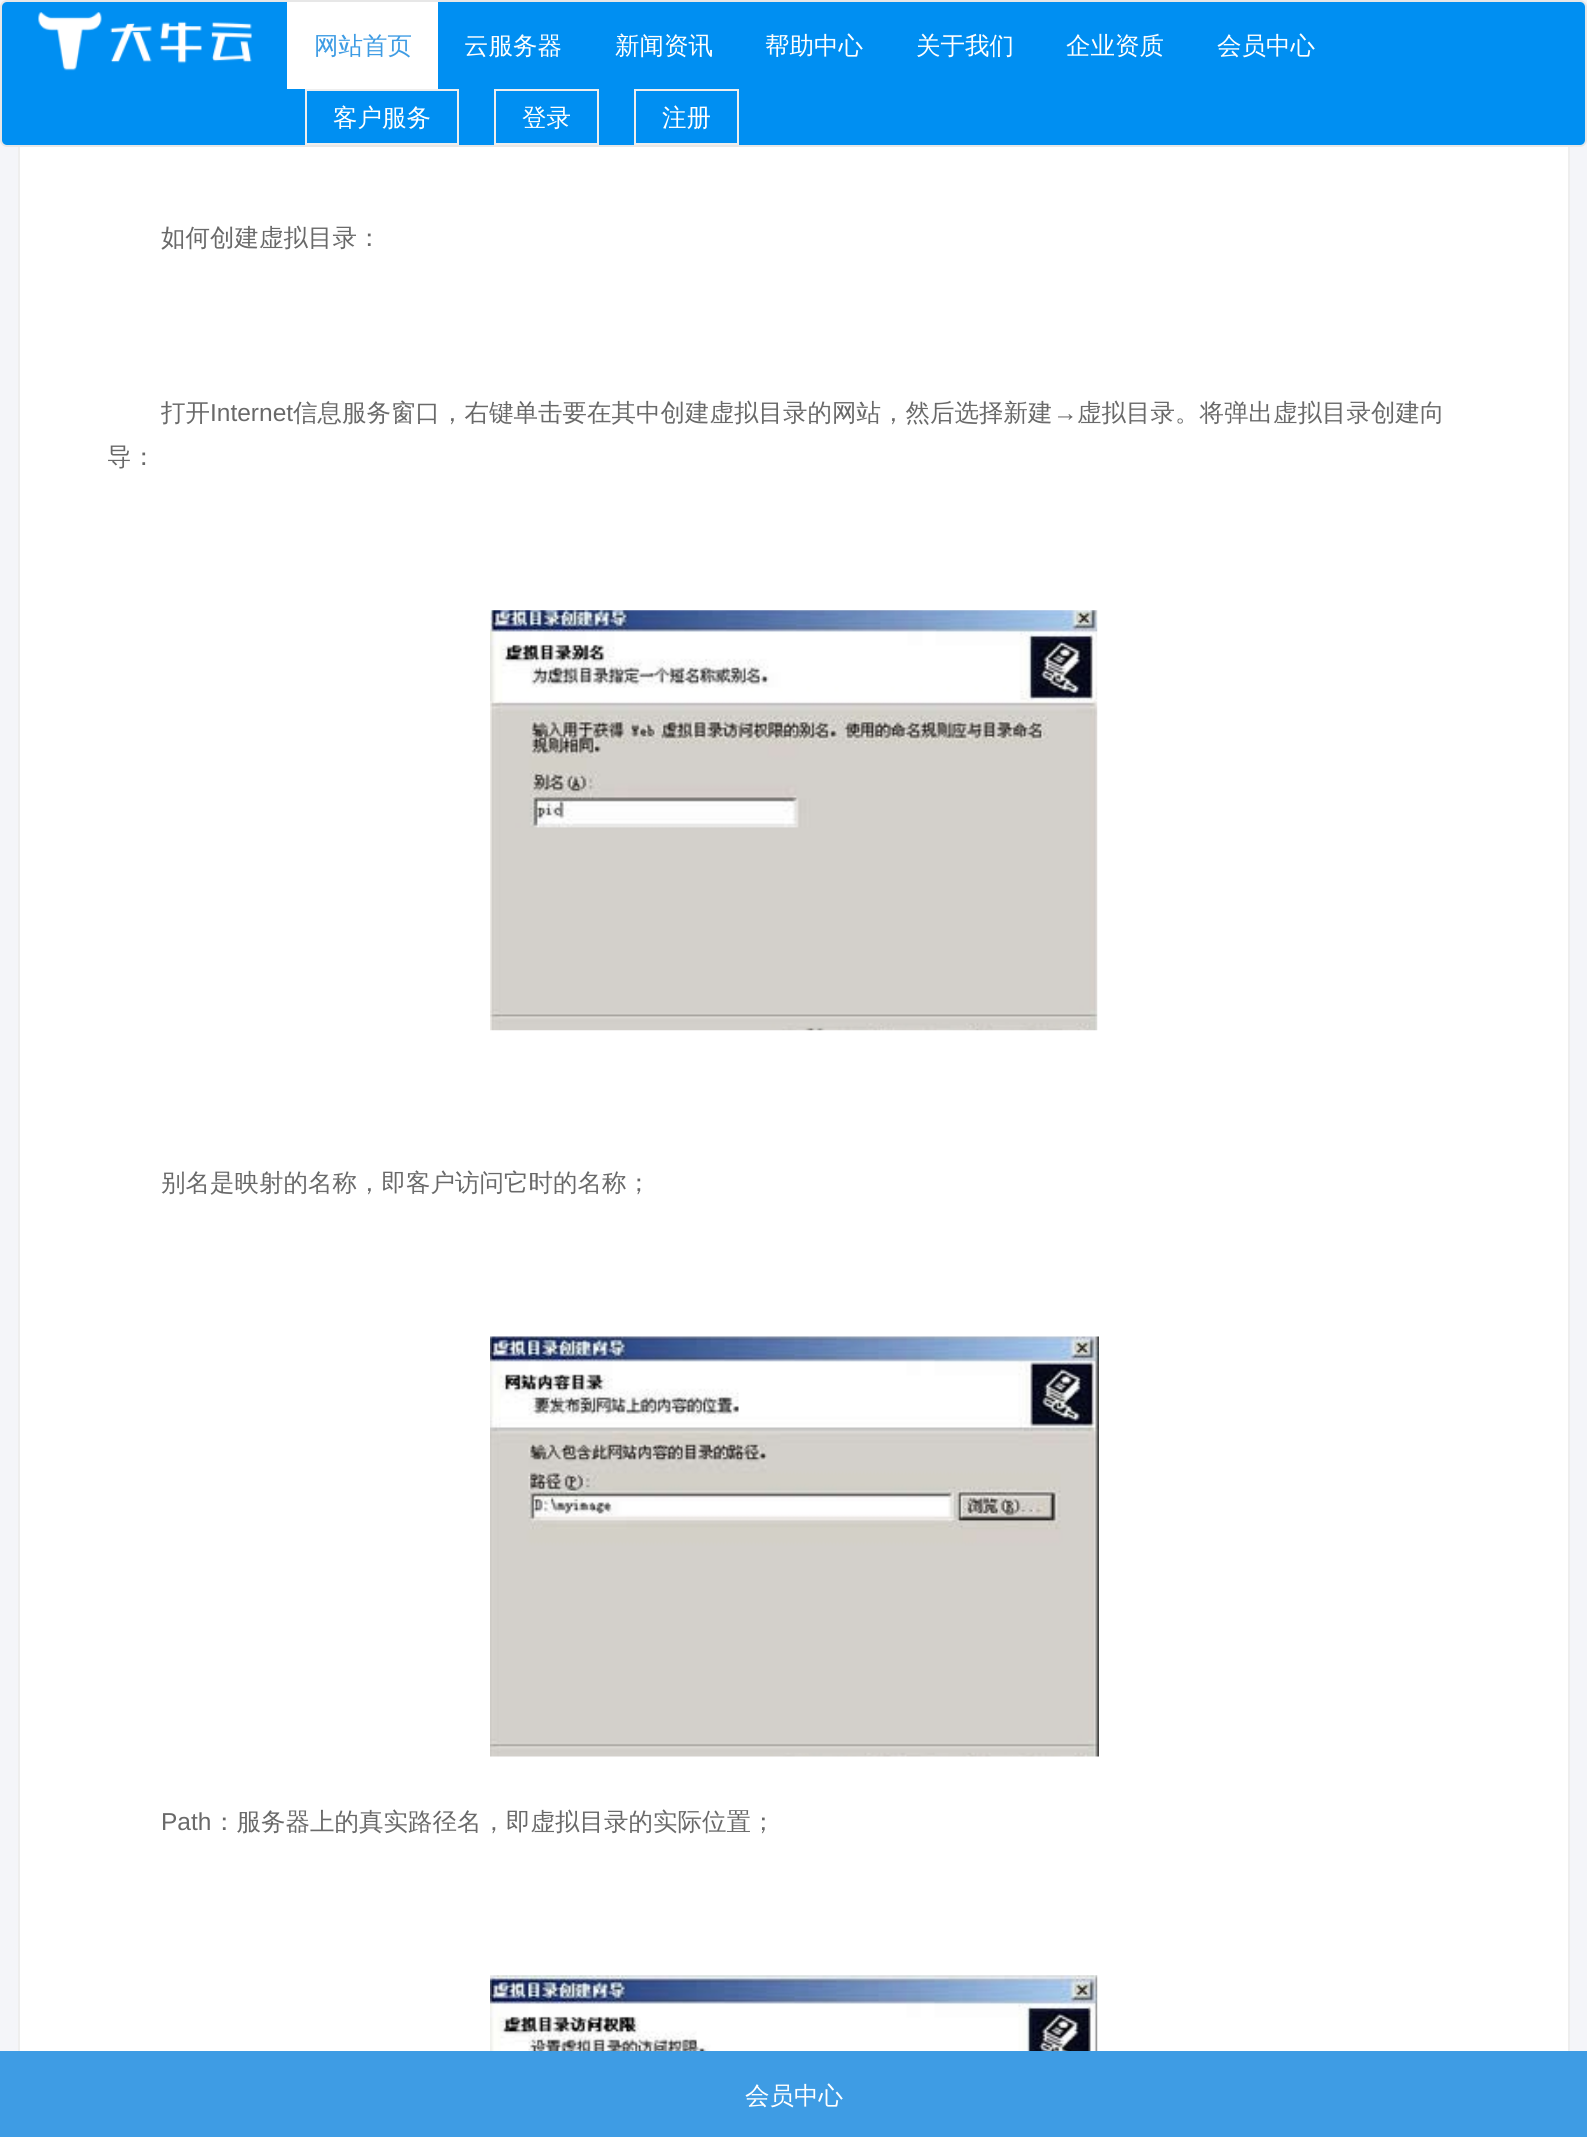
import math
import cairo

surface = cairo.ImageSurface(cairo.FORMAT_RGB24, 1587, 2137)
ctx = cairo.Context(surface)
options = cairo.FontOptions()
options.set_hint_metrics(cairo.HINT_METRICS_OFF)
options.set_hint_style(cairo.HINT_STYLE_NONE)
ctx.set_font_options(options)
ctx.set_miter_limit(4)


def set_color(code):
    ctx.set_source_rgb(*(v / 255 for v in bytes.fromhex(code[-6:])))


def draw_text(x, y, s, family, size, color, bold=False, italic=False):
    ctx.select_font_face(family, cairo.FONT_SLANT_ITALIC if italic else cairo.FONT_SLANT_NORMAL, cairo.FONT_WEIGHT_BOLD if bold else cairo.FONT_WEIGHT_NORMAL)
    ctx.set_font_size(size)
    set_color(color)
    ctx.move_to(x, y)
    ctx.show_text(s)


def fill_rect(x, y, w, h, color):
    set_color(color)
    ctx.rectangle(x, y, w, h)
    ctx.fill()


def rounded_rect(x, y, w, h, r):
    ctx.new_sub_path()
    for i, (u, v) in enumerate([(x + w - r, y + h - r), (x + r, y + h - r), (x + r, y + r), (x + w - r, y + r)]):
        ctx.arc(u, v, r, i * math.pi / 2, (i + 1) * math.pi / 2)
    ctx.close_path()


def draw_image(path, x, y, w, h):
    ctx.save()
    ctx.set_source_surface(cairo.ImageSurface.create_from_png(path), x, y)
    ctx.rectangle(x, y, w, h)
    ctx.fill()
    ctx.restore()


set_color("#f4f5f9")
ctx.paint()
fill_rect(20, 147, 1548, 1904, "#ffffff")
ctx.rectangle(19, -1, 1550, 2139)
set_color("#eeeeee")
ctx.stroke()
set_color("#008ff2")
rounded_rect(1, 1, 1585, 145, 6)
ctx.fill_preserve()
set_color("#e7e7e7")
ctx.stroke()
draw_image("assets/img1.png", 38, 12, 214, 59)
fill_rect(287, 2, 151, 87, "#ffffff")
draw_text(314, 54, "网站首页", "WenQuanYi Zen Hei Medium", 24.5, "#3e9ce4")
draw_text(464, 54, "云服务器", "WenQuanYi Zen Hei Medium", 24.5, "#ffffff")
draw_text(615, 54, "新闻资讯", "WenQuanYi Zen Hei Medium", 24.5, "#ffffff")
draw_text(765, 54, "帮助中心", "WenQuanYi Zen Hei Medium", 24.5, "#ffffff")
draw_text(916, 54, "关于我们", "WenQuanYi Zen Hei Medium", 24.5, "#ffffff")
draw_text(1066, 54, "企业资质", "WenQuanYi Zen Hei Medium", 24.5, "#ffffff")
draw_text(1217, 54, "会员中心", "WenQuanYi Zen Hei Medium", 24.5, "#ffffff")
ctx.rectangle(306, 90, 152, 54)
set_color("#eeeeee")
ctx.stroke()
draw_text(333, 126, "客户服务", "WenQuanYi Zen Hei Medium", 24.5, "#ffffff")
ctx.rectangle(495, 90, 103, 54)
set_color("#eeeeee")
ctx.stroke()
draw_text(522, 126, "登录", "WenQuanYi Zen Hei Medium", 24.5, "#ffffff")
ctx.rectangle(635, 90, 103, 54)
set_color("#eeeeee")
ctx.stroke()
draw_text(662, 126, "注册", "WenQuanYi Zen Hei Medium", 24.5, "#ffffff")
draw_text(161, 246, "如何创建虚拟目录：", "WenQuanYi Zen Hei Medium", 24.5, "#696969")
draw_text(161, 421, "打开", "WenQuanYi Zen Hei Medium", 24.5, "#696969")
draw_text(210, 421, "Internet", "Liberation Sans", 24.5, "#696969")
draw_text(293, 421, "信息服务窗口，右键单击要在其中创建虚拟目录的网站，然后选择新建", "WenQuanYi Zen Hei Medium", 24.5, "#696969")
draw_text(1053, 421, "→", "Liberation Sans", 24.5, "#696969")
draw_text(1077, 421, "虚拟目录。将弹出虚拟目录创建向", "WenQuanYi Zen Hei Medium", 24.5, "#696969")
draw_text(107, 465, "导：", "WenQuanYi Zen Hei Medium", 24.5, "#696969")
draw_image("assets/img2.png", 490, 610, 608, 421)
draw_text(161, 1191, "别名是映射的名称，即客户访问它时的名称；", "WenQuanYi Zen Hei Medium", 24.5, "#696969")
draw_image("assets/img3.png", 490, 1336, 609, 421)
draw_text(161, 1830, "Path", "Liberation Sans", 24.5, "#696969")
draw_text(212, 1830, "：服务器上的真实路径名，即虚拟目录的实际位置；", "WenQuanYi Zen Hei Medium", 24.5, "#696969")
draw_image("assets/img4.png", 490, 1975, 608, 76)
fill_rect(0, 2051, 1587, 86, "#3e9ce4")
draw_text(745, 2104, "会员中心", "WenQuanYi Zen Hei Medium", 24.5, "#ffffff")
surface.write_to_png("output.png")
